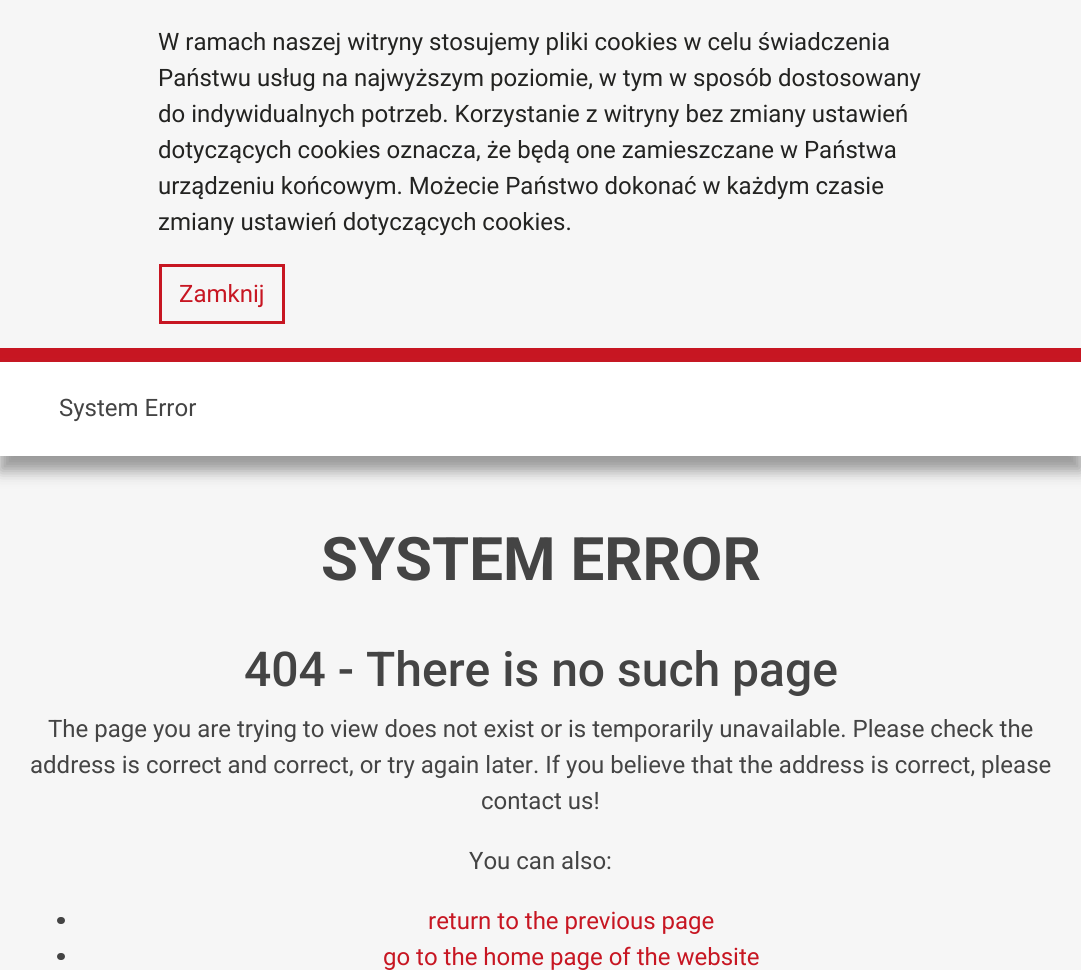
import math
import cairo

surface = cairo.ImageSurface(cairo.FORMAT_RGB24, 1081, 970)
ctx = cairo.Context(surface)
options = cairo.FontOptions()
options.set_hint_metrics(cairo.HINT_METRICS_OFF)
options.set_hint_style(cairo.HINT_STYLE_NONE)
ctx.set_font_options(options)
ctx.set_miter_limit(4)


def set_color(code):
    ctx.set_source_rgb(*(v / 255 for v in bytes.fromhex(code[-6:])))


def draw_text(x, y, s, family, size, color, bold=False, italic=False):
    ctx.select_font_face(family, cairo.FONT_SLANT_ITALIC if italic else cairo.FONT_SLANT_NORMAL, cairo.FONT_WEIGHT_BOLD if bold else cairo.FONT_WEIGHT_NORMAL)
    ctx.set_font_size(size)
    set_color(color)
    ctx.move_to(x, y)
    ctx.show_text(s)


def fill_rect(x, y, w, h, color):
    set_color(color)
    ctx.rectangle(x, y, w, h)
    ctx.fill()


def rounded_rect(x, y, w, h, r):
    ctx.new_sub_path()
    for i, (u, v) in enumerate([(x + w - r, y + h - r), (x + r, y + h - r), (x + r, y + r), (x + w - r, y + r)]):
        ctx.arc(u, v, r, i * math.pi / 2, (i + 1) * math.pi / 2)
    ctx.close_path()


def draw_shadow(x, y, w, h, r, blur, alpha):
    ctx.push_group_with_content(cairo.CONTENT_ALPHA)
    ctx.set_operator(cairo.OPERATOR_SOURCE)
    for i in range(15, -16, -2):
        e = blur * i / 6
        if min(w, h) + 2 * e > 0:
            ctx.set_source_rgba(0, 0, 0, alpha * math.erfc((i - 1) / 8.5) / 2)
            rounded_rect(x - e, y - e, w + 2 * e, h + 2 * e, max(0, min(r + e + blur * .6, min(w, h) / 2 + e)))
            ctx.fill()
    ctx.mask(ctx.pop_group())


set_color("#f6f6f6")
ctx.paint()
draw_text(158, 50, "W ramach naszej witryny stosujemy pliki cookies w celu świadczenia", "Roboto", 24, "#232321")
draw_text(158, 86, "Państwu usług na najwyższym poziomie, w tym w sposób dostosowany", "Roboto", 24, "#232321")
draw_text(158, 122, "do indywidualnych potrzeb. Korzystanie z witryny bez zmiany ustawień", "Roboto", 24, "#232321")
draw_text(158, 158, "dotyczących cookies oznacza, że będą one zamieszczane w Państwa", "Roboto", 24, "#232321")
draw_text(158, 194, "urządzeniu końcowym. Możecie Państwo dokonać w każdym czasie", "Roboto", 24, "#232321")
draw_text(158, 230, "zmiany ustawień dotyczących cookies.", "Roboto", 24, "#232321")
ctx.rectangle(160.5, 265.5, 123, 57)
set_color("#c71622")
ctx.set_line_width(3)
ctx.stroke()
draw_text(179, 302, "Zamknij", "Roboto", 24, "#c71622")
fill_rect(0, 348, 1081, 14, "#c71622")
set_color("#999999")
draw_shadow(0, 377, 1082, 94, 0, 7.5, 1)
fill_rect(0, 362, 1081, 94, "#ffffff")
draw_text(59, 416, "System Error", "Roboto", 24, "#444444")
draw_text(321, 580, "SYSTEM ERROR", "Roboto", 60, "#444444", bold=True)
draw_text(244, 686, "404 - There is no such page", "Roboto Medium", 48, "#444444")
draw_text(48, 737, "The page you are trying to view does not exist or is temporarily unavailable. Please check the", "Roboto", 24, "#444444")
draw_text(30, 773, "address is correct and correct, or try again later. If you believe that the address is correct, please", "Roboto", 24, "#444444")
draw_text(481, 809, "contact us!", "Roboto", 24, "#444444")
draw_text(469, 869, "You can also:", "Roboto", 24, "#444444")
rounded_rect(57, 917, 8, 7, 3.5)
ctx.fill()
draw_text(428, 929, "return to the previous page", "Roboto", 24, "#c71622")
set_color("#444444")
rounded_rect(57, 953, 8, 7, 3.5)
ctx.fill()
draw_text(383, 965, "go to the home page of the website", "Roboto", 24, "#c71622")
surface.write_to_png("output.png")
